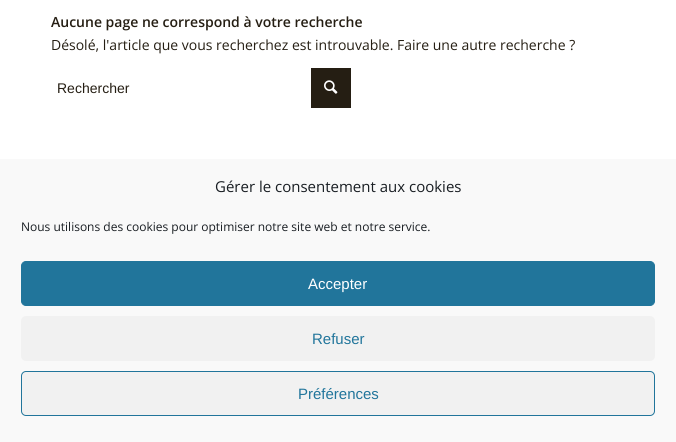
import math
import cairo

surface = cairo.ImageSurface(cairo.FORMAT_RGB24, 676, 442)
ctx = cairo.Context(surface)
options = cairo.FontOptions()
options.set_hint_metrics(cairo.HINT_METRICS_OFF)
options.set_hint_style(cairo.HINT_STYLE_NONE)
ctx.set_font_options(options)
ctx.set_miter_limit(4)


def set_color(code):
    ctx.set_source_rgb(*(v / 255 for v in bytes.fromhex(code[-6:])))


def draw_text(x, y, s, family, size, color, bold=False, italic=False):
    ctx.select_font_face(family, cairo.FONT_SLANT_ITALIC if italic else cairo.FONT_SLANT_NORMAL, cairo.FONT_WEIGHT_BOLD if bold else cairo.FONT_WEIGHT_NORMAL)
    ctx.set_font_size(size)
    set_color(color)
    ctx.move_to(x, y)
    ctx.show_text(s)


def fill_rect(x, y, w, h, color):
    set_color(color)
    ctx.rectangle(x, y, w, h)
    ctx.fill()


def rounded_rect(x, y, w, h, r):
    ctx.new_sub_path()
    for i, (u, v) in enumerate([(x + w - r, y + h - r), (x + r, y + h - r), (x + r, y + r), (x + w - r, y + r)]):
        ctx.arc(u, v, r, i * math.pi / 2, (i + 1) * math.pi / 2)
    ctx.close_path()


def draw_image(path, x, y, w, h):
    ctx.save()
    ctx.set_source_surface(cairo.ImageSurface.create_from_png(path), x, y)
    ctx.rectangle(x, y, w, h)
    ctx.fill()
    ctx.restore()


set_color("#ffffff")
ctx.paint()
draw_text(51, 27, "Aucune page ne correspond à votre recherche", "Open Sans SemiBold", 14, "#251e13")
draw_text(51, 50, "Désolé, l'article que vous recherchez est introuvable. Faire une autre recherche ?", "Open Sans", 14, "#251e13")
draw_text(57, 93, "Rechercher", "Liberation Sans", 14, "#251e13")
fill_rect(311, 68, 40, 40, "#251e13")
draw_image("assets/img1.png", 324, 80, 14, 14)
fill_rect(0, 159, 676, 283, "#f9f9f9")
draw_text(215, 192, "Gérer le consentement aux cookies", "Open Sans", 15, "#191e23")
draw_text(21, 231, "Nous utilisons des cookies pour optimiser notre site web et notre service.", "Open Sans", 12, "#191e23")
set_color("#21759b")
rounded_rect(21.5, 261.5, 633, 44, 4.5)
ctx.fill_preserve()
ctx.set_line_width(1)
ctx.stroke()
draw_text(308, 289, "Accepter", "Liberation Sans", 15, "#ffffff")
set_color("#f1f1f1")
rounded_rect(21, 316, 634, 45, 5)
ctx.fill()
draw_text(312, 344, "Refuser", "Liberation Sans", 15, "#21759b")
set_color("#f1f1f1")
rounded_rect(21.5, 371.5, 633, 44, 4.5)
ctx.fill_preserve()
set_color("#21759b")
ctx.stroke()
draw_text(298, 399, "Préférences", "Liberation Sans", 15, "#21759b")
surface.write_to_png("output.png")
